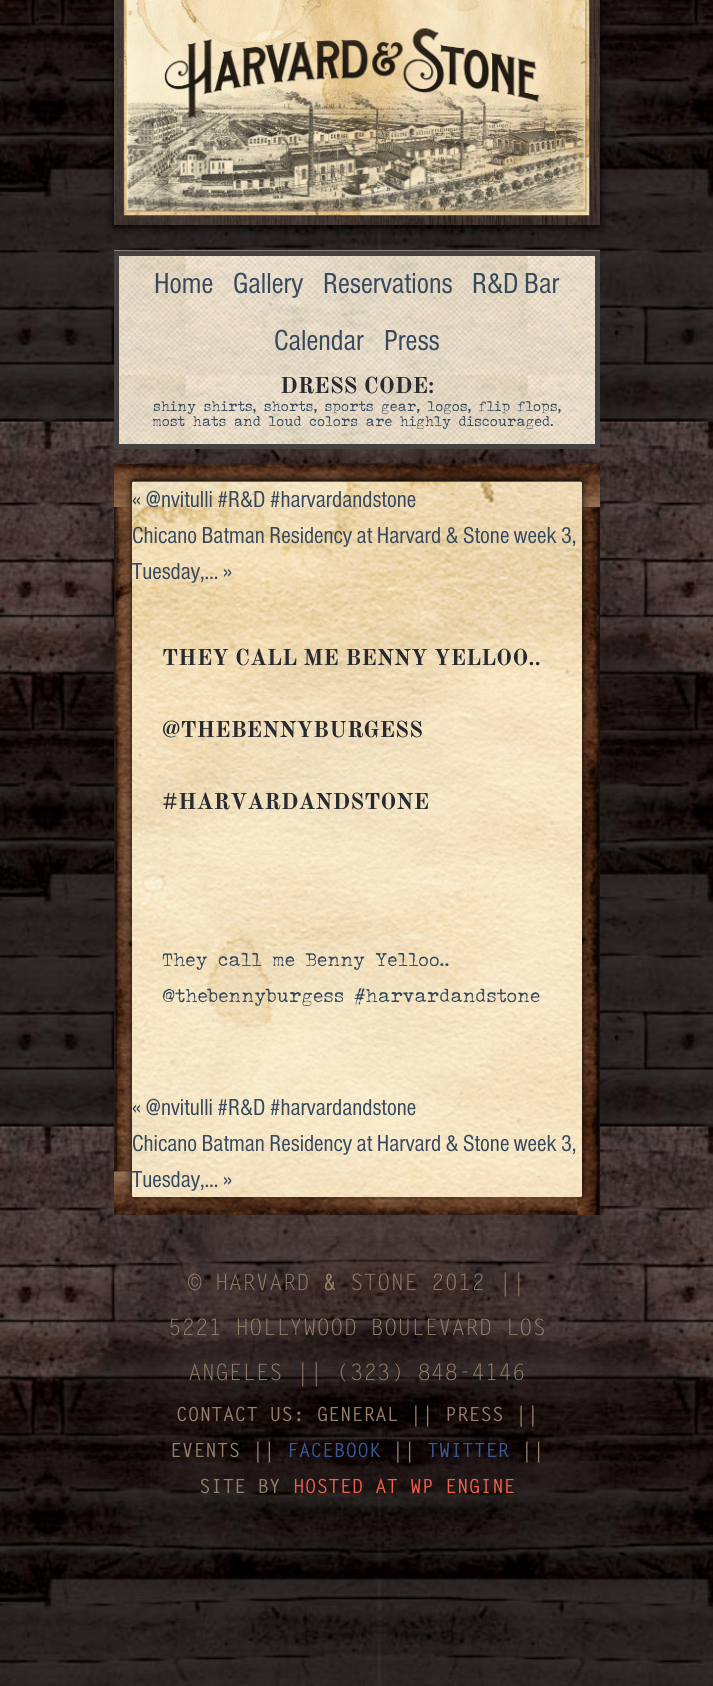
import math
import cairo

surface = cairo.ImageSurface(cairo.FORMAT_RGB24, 713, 1686)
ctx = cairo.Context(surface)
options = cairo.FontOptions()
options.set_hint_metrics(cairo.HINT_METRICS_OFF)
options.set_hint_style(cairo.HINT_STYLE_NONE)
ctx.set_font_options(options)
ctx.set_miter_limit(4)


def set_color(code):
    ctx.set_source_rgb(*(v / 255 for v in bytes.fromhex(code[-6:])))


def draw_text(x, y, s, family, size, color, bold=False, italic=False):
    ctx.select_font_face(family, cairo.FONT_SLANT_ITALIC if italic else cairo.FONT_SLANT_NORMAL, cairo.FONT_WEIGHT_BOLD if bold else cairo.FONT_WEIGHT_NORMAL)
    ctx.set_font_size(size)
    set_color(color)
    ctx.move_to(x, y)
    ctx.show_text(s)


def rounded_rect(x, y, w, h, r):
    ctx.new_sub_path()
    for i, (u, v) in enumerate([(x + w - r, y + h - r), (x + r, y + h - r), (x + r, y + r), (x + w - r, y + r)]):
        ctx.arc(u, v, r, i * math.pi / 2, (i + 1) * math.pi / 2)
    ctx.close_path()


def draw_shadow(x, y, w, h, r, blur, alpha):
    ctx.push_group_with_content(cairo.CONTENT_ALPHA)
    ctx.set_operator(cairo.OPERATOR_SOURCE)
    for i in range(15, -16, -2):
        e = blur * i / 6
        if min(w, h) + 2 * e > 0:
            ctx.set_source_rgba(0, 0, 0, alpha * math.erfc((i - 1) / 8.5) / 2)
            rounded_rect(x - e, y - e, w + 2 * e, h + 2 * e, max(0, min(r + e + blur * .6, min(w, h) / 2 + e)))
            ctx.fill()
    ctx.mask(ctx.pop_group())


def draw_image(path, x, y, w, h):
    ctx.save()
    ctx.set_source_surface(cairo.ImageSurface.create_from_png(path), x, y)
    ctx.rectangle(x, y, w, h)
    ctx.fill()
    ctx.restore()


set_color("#ffffff")
ctx.paint()
draw_image("assets/img1.png", 0, 0, 713, 1686)
set_color("#000000")
draw_shadow(114, 2, 486, 225, 0, 4, 1)
draw_image("assets/img2.png", 114, 0, 486, 225)
draw_image("assets/img3.png", 114, 250, 486, 194)
ctx.rectangle(116.5, 253.5, 481, 193)
set_color("#434240")
ctx.set_line_width(5)
ctx.stroke()
draw_text(154, 293, "Home", "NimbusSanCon", 30, "#35485d")
draw_text(233, 293, "Gallery", "NimbusSanCon", 30, "#35485d")
draw_text(323, 293, "Reservations", "NimbusSanCon", 30, "#35485d")
draw_text(472, 293, "R&D Bar", "NimbusSanCon", 30, "#35485d")
draw_text(274, 350, "Calendar", "NimbusSanCon", 30, "#35485d")
draw_text(384, 350, "Press", "NimbusSanCon", 30, "#35485d")
draw_text(280, 393, "DRESS CODE:", "Old Standard TT", 22.5, "#282a30", bold=True)
draw_text(153, 411, "shiny shirts, shorts, sports gear, logos, flip flops,", "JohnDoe", 13.5, "#35485d")
draw_text(152, 426, "most hats and loud colors are highly discouraged.", "JohnDoe", 13.5, "#35485d")
draw_image("assets/img4.png", 114, 463, 486, 752)
set_color("#000000")
draw_shadow(132, 479, 450, 715, 1.5, 4, 1)
draw_image("assets/img5.png", 132, 481, 450, 716)
draw_text(132, 507, "« @nvitulli #R&D #harvardandstone", "NimbusSanCon", 24, "#35485d")
draw_text(132, 543, "Chicano Batman Residency at Harvard & Stone week 3,", "NimbusSanCon", 24, "#35485d")
draw_text(132, 579, "Tuesday,… »", "NimbusSanCon", 24, "#35485d")
draw_text(162, 665, "THEY CALL ME BENNY YELLOO..", "Old Standard TT", 22.5, "#282a30", bold=True)
draw_text(162, 737, "@THEBENNYBURGESS", "Old Standard TT", 22.5, "#282a30", bold=True)
draw_text(162, 809, "#HARVARDANDSTONE", "Old Standard TT", 22.5, "#282a30", bold=True)
draw_text(162, 966, "They call me Benny Yelloo..", "JohnDoe", 18, "#35485d")
draw_text(162, 1002, "@thebennyburgess #harvardandstone", "JohnDoe", 18, "#35485d")
draw_text(132, 1115, "« @nvitulli #R&D #harvardandstone", "NimbusSanCon", 24, "#35485d")
draw_text(132, 1151, "Chicano Batman Residency at Harvard & Stone week 3,", "NimbusSanCon", 24, "#35485d")
draw_text(132, 1187, "Tuesday,… »", "NimbusSanCon", 24, "#35485d")
draw_text(188, 1290, "© HARVARD", "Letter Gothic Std", 22.5, "#97806b")
draw_text(323, 1290, "&", "Letter Gothic Std", 22.5, "#97806b", bold=True)
draw_text(350, 1290, "STONE 2012 ||", "Letter Gothic Std", 22.5, "#97806b")
draw_text(168, 1335, "5221 HOLLYWOOD BOULEVARD LOS", "Letter Gothic Std", 22.5, "#97806b")
draw_text(188, 1380, "ANGELES || (323) 848-4146", "Letter Gothic Std", 22.5, "#97806b")
draw_text(176, 1421, "CONTACT US: GENERAL || PRESS ||", "Letter Gothic Std", 19.5, "#97806b", bold=True)
draw_text(170, 1457, "EVENTS ||", "Letter Gothic Std", 19.5, "#97806b", bold=True)
draw_text(287, 1457, "FACEBOOK", "Letter Gothic Std", 19.5, "#3b5998", bold=True)
draw_text(392, 1457, "||", "Letter Gothic Std", 19.5, "#97806b", bold=True)
draw_text(427, 1457, "TWITTER", "Letter Gothic Std", 19.5, "#3b5998", bold=True)
draw_text(521, 1457, "||", "Letter Gothic Std", 19.5, "#97806b", bold=True)
draw_text(199, 1493, "SITE BY", "Letter Gothic Std", 19.5, "#97806b", bold=True)
draw_text(293, 1493, "HOSTED AT WP ENGINE", "Letter Gothic Std", 19.5, "#f0604c", bold=True)
surface.write_to_png("output.png")
